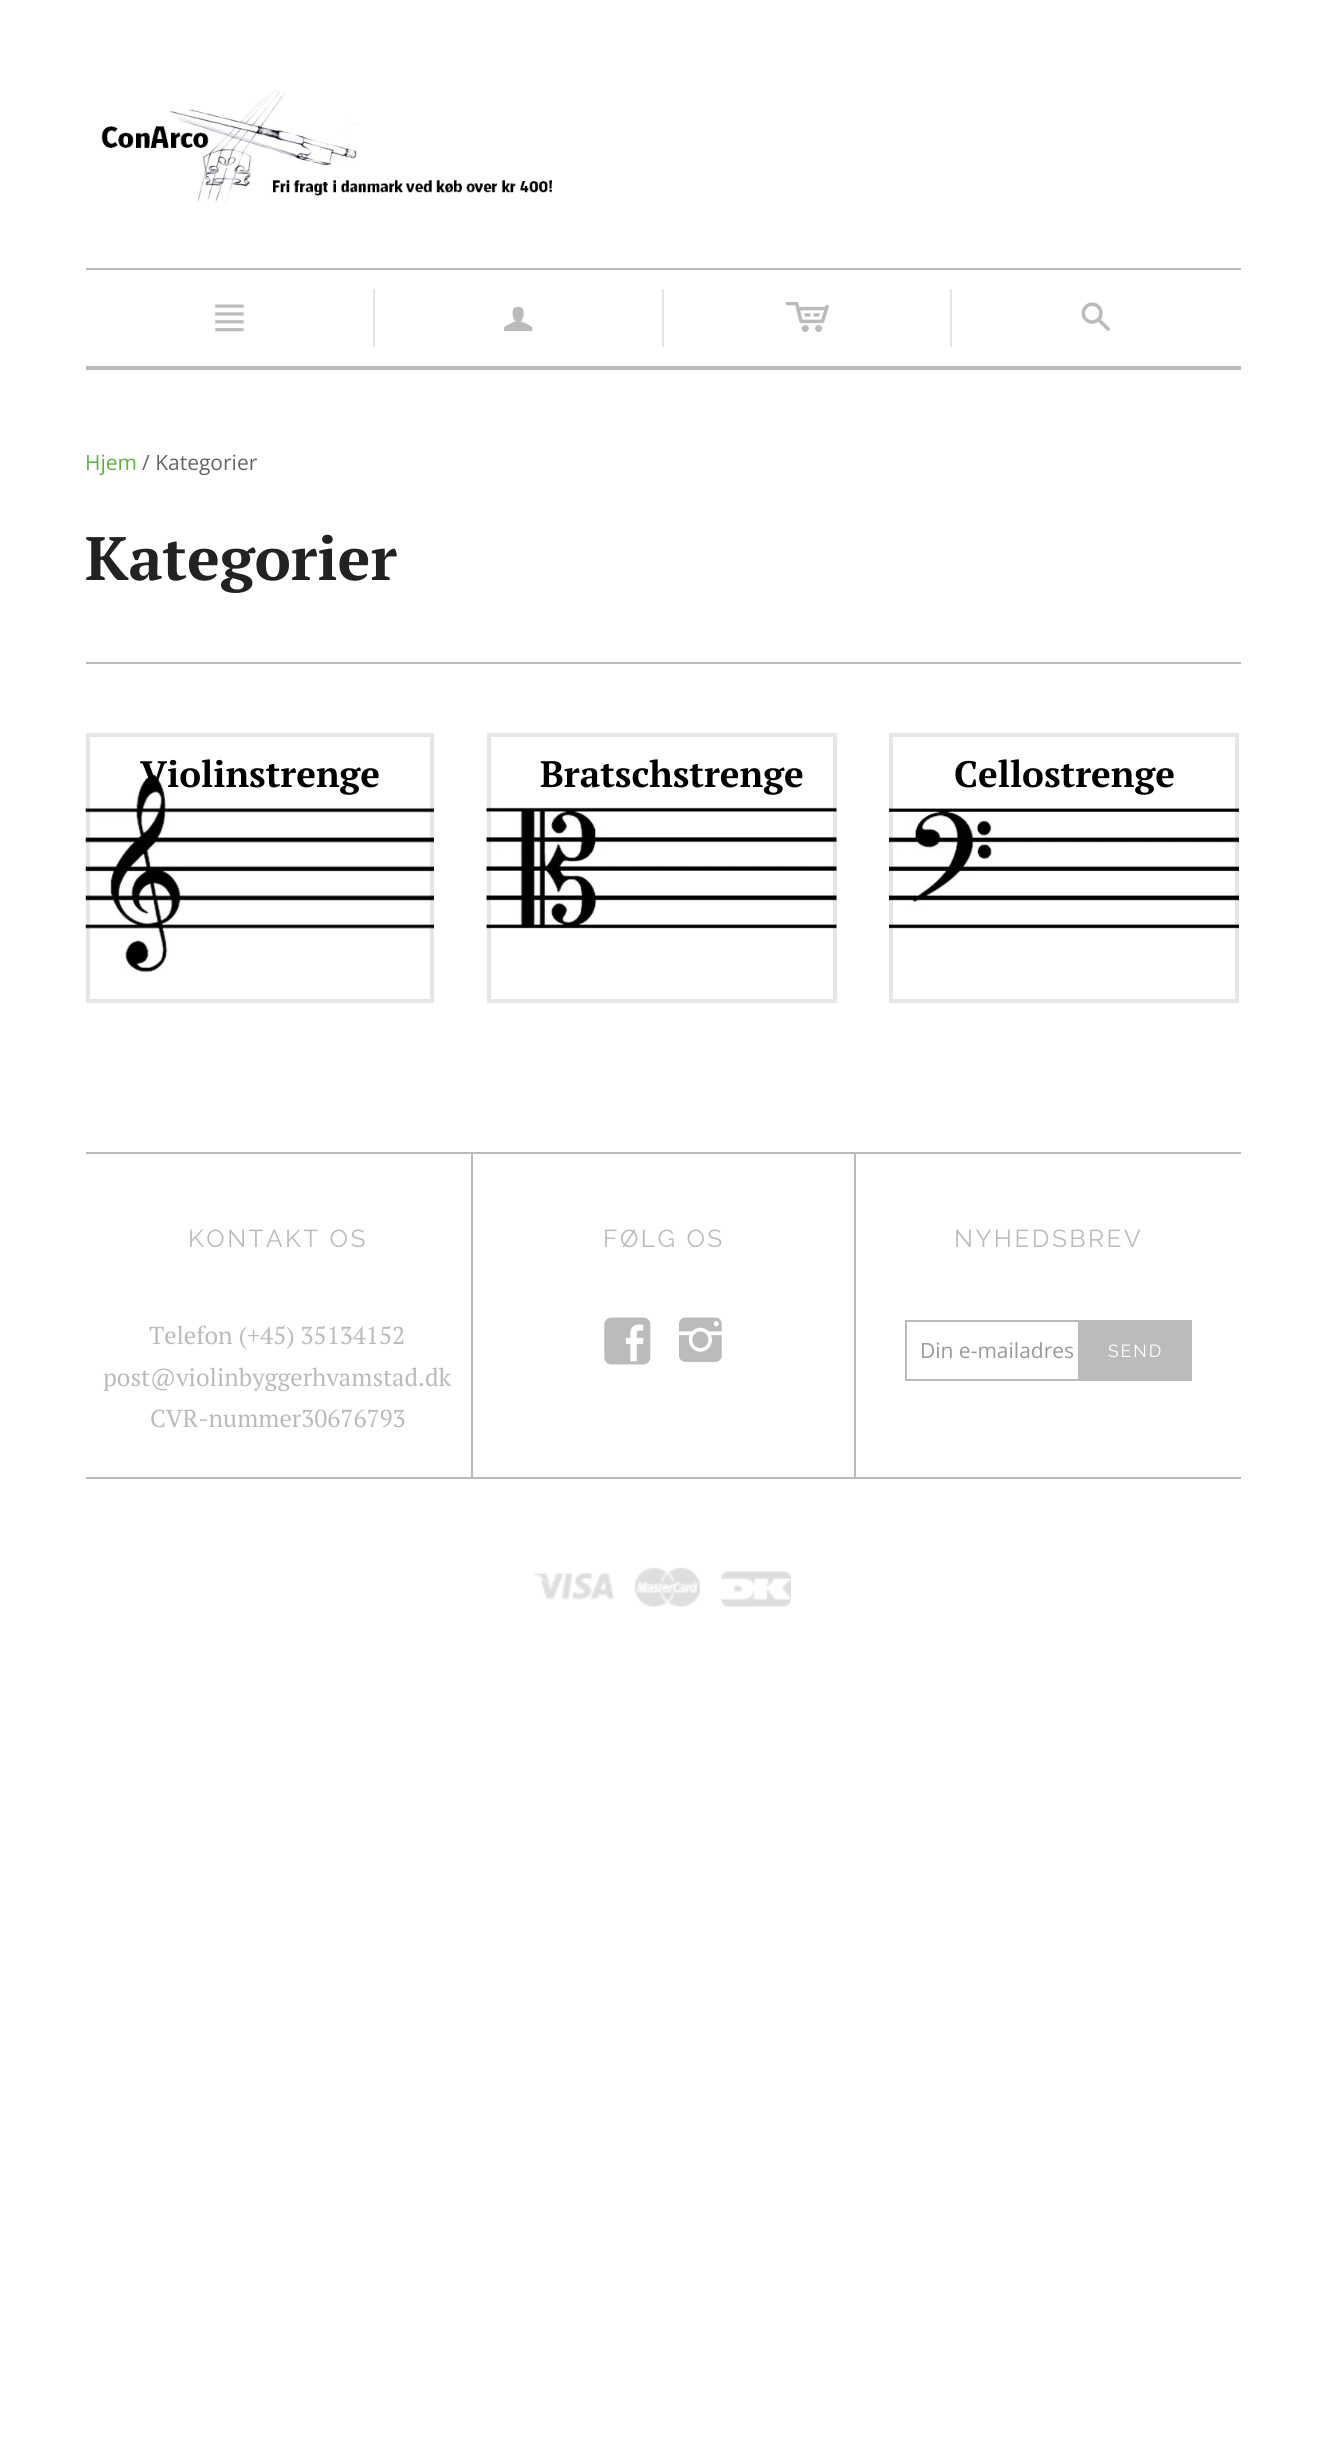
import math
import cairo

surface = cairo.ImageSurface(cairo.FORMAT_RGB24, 1324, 2443)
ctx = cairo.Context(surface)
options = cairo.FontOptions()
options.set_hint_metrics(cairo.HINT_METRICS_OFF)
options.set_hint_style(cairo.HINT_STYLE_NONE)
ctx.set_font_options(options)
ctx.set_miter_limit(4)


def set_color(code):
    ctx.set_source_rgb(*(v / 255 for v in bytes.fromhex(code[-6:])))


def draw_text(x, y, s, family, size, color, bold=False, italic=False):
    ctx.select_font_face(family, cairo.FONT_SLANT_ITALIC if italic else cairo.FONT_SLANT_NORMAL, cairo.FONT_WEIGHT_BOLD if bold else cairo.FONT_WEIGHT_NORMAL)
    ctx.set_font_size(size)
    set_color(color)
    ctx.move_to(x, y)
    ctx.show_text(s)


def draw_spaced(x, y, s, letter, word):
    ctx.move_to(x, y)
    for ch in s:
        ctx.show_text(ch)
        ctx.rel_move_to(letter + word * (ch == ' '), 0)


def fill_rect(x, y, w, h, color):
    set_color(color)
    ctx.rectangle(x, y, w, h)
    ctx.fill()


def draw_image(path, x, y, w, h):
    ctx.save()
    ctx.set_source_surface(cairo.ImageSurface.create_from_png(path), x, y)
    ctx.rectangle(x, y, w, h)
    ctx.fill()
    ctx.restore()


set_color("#ffffff")
ctx.paint()
draw_image("assets/img1.png", 101, 90, 451, 114)
fill_rect(86, 268, 1155, 2, "#bbbbbb")
fill_rect(86, 366, 1155, 4, "#bbbbbb")
draw_image("assets/img2.png", 215, 304, 29, 28)
fill_rect(373, 289, 2, 58, "#e5e5e5")
draw_image("assets/img3.png", 504, 306, 29, 26)
fill_rect(662, 289, 2, 58, "#e5e5e5")
draw_image("assets/img4.png", 785, 301, 44, 31)
fill_rect(950, 289, 2, 58, "#e5e5e5")
draw_image("assets/img5.png", 1081, 302, 29, 29)
draw_text(85, 470, "Hjem", "Open Sans", 21, "#5bb53a")
draw_text(142, 470, "/ Kategorier", "Open Sans", 21, "#666666")
fill_rect(86, 662, 1155, 2, "#bbbbbb")
draw_text(85, 580, "Kategorier", "PT Serif", 61.25, "#222222", bold=True)
draw_image("assets/img6.png", 85, 773, 349, 200)
ctx.rectangle(88, 735, 344, 266)
ctx.set_source_rgba(0, 0, 0, 0.1)
ctx.set_line_width(4)
ctx.stroke()
draw_text(140, 787, "Violinstrenge", "PT Serif", 36.75, "#000000", bold=True)
draw_image("assets/img7.png", 486, 807, 351, 122)
ctx.rectangle(489, 735, 346, 266)
ctx.set_source_rgba(0, 0, 0, 0.1)
ctx.stroke()
draw_text(540, 787, "Bratschstrenge", "PT Serif", 36.75, "#000000", bold=True)
draw_image("assets/img8.png", 889, 808, 350, 121)
ctx.rectangle(891, 735, 346, 266)
ctx.set_source_rgba(0, 0, 0, 0.1)
ctx.stroke()
draw_text(954, 787, "Cellostrenge", "PT Serif", 36.75, "#000000", bold=True)
fill_rect(86, 1152, 1155, 2, "#bbbbbb")
fill_rect(86, 1477, 1155, 2, "#bbbbbb")
ctx.select_font_face("Raleway")
ctx.set_font_size(24.5)
draw_spaced(188, 1247, "KONTAKT OS", 2.5, 0)
draw_text(149, 1344, "Telefon (+45) 35134152", "PT Serif", 24.5, "#bbbbbb")
draw_text(103, 1386, "post@violinbyggerhvamstad.dk", "PT Serif", 24.5, "#bbbbbb")
draw_text(150, 1427, "CVR-nummer30676793", "PT Serif", 24.5, "#bbbbbb")
fill_rect(471, 1153, 2, 324, "#bbbbbb")
ctx.select_font_face("Raleway")
draw_spaced(603, 1247, "FØLG OS", 2.5, 0)
draw_image("assets/img9.png", 604, 1317, 47, 48)
draw_image("assets/img10.png", 679, 1317, 43, 45)
fill_rect(854, 1153, 2, 324, "#bbbbbb")
draw_spaced(954, 1247, "NYHEDSBREV", 2.5, 0)
ctx.rectangle(906, 1321, 285, 59)
ctx.set_line_width(2)
ctx.stroke()
draw_text(920, 1358, "Din e-mailadres", "Open Sans", 21, "#999999")
fill_rect(1078, 1322, 112, 57, "#bbbbbb")
ctx.select_font_face("Raleway")
ctx.set_font_size(17.5)
set_color("#ffffff")
draw_spaced(1108, 1357, "SEND", 2, 0)
draw_image("assets/img11.png", 534, 1573, 80, 27)
draw_image("assets/img12.png", 634, 1567, 66, 40)
draw_image("assets/img13.png", 721, 1571, 70, 36)
surface.write_to_png("output.png")
